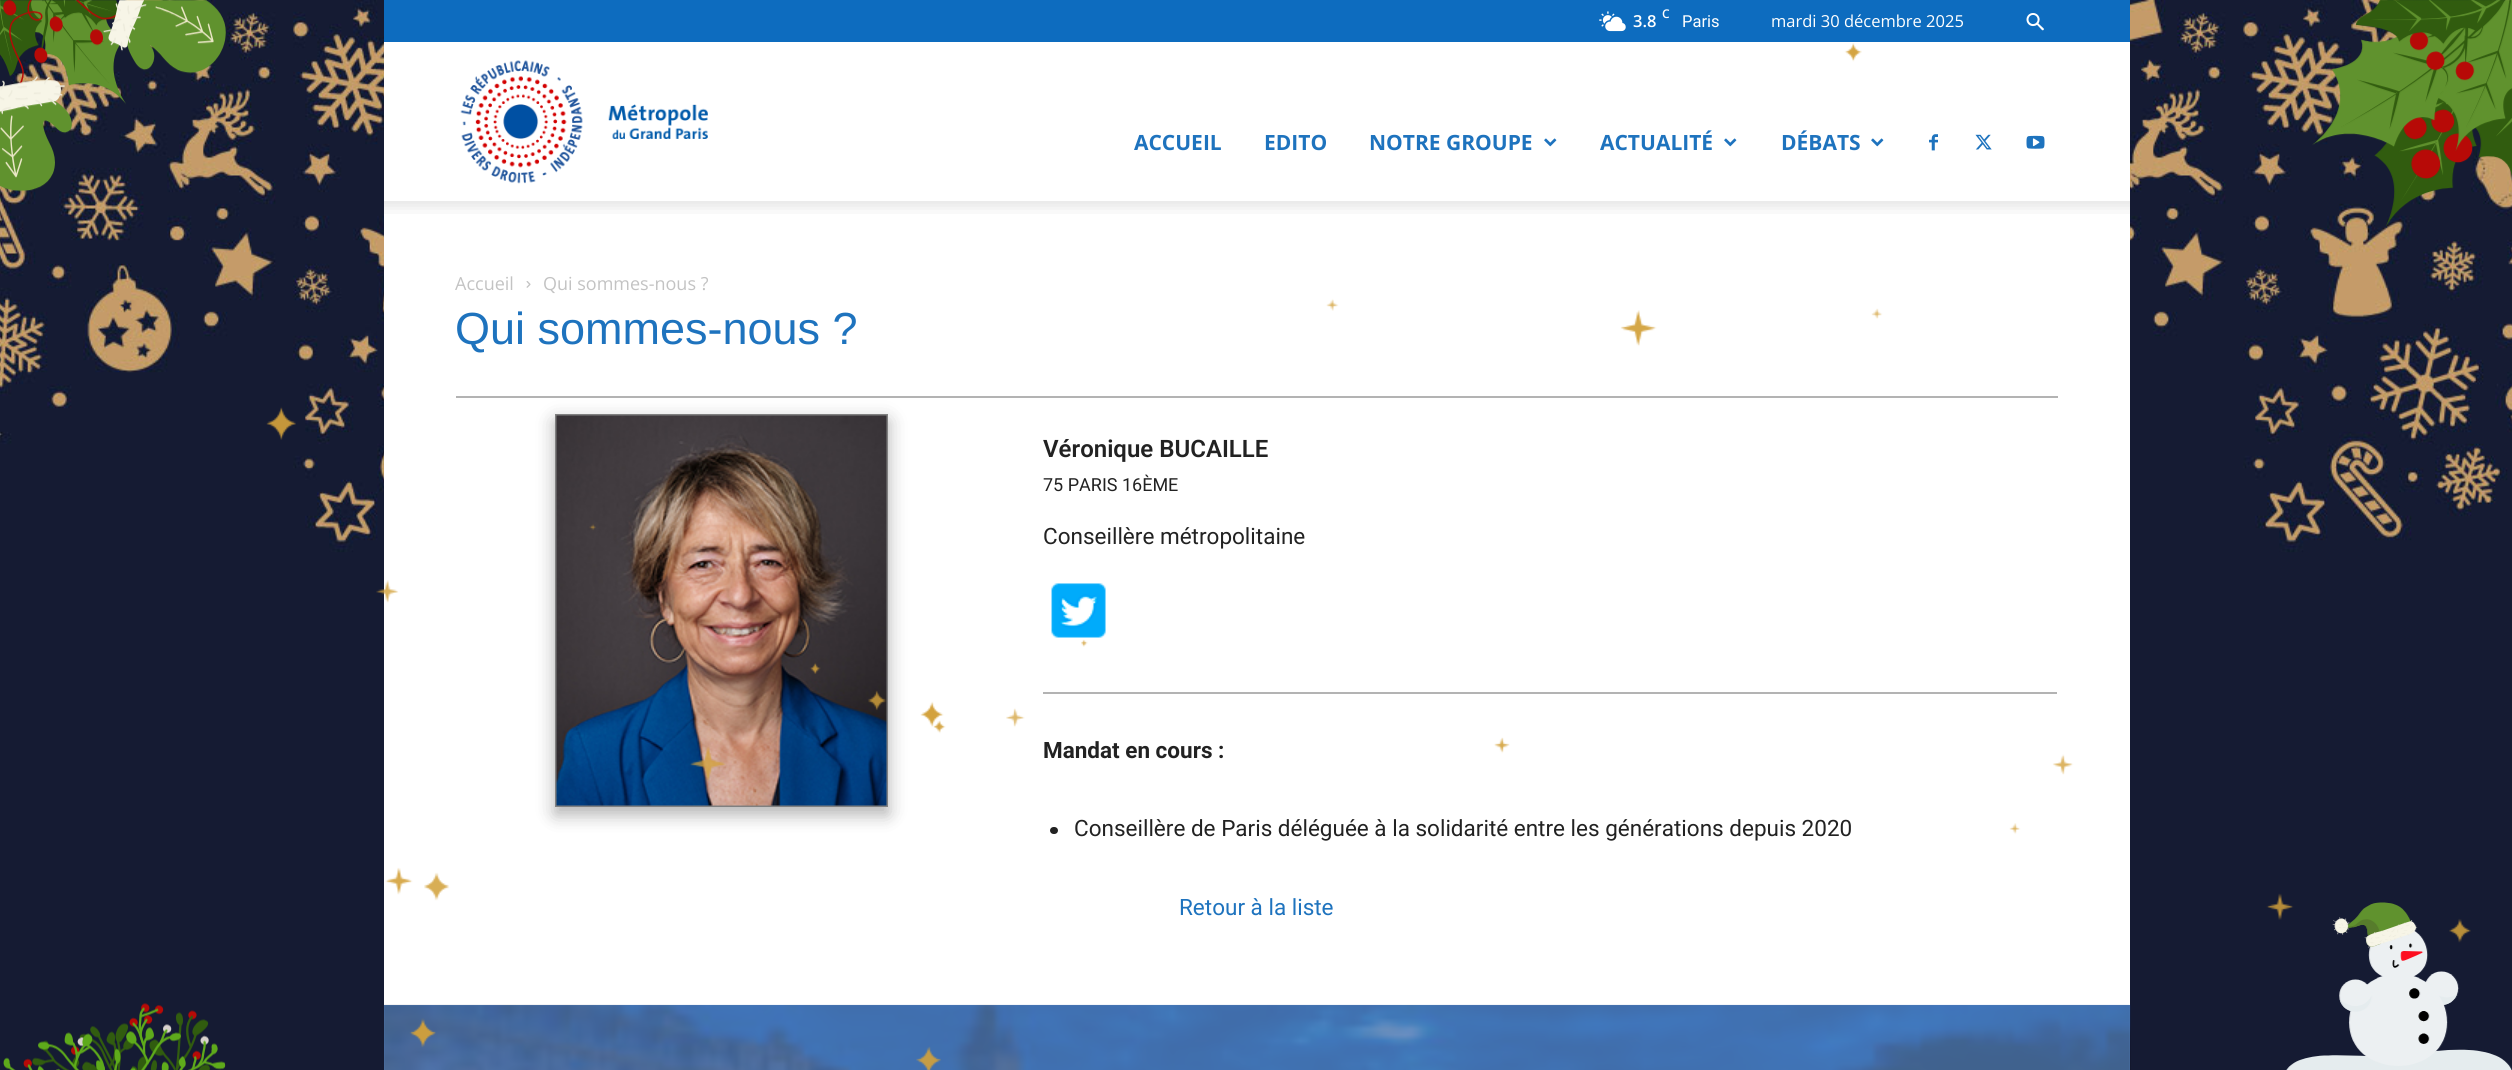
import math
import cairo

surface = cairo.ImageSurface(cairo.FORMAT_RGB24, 2512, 1070)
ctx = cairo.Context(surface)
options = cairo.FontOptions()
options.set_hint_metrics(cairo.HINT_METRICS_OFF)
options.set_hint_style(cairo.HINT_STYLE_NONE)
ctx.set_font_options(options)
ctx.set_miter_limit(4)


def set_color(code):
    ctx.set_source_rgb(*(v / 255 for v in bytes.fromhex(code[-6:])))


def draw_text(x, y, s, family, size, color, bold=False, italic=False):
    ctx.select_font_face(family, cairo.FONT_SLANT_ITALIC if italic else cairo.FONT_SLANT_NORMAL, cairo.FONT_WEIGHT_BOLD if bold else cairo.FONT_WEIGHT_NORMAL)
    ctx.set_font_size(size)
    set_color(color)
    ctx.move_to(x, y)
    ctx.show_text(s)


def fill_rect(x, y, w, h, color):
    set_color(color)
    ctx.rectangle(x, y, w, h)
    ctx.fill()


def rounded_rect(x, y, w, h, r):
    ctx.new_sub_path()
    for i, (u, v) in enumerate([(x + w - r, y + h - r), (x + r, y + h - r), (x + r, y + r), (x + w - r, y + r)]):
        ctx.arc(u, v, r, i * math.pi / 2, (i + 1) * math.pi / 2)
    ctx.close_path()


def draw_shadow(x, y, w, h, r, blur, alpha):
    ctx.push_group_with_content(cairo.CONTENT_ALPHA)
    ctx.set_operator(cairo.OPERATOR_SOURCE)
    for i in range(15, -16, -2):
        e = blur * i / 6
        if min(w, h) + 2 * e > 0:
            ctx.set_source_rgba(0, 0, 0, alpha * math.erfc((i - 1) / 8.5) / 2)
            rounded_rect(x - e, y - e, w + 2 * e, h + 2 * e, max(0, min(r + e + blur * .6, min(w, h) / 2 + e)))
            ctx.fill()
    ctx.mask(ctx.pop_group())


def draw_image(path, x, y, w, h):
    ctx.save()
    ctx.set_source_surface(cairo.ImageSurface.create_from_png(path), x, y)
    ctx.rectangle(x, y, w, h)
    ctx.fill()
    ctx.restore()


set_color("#ffffff")
ctx.paint()
draw_image("assets/img1.png", 0, 0, 2512, 1070)
draw_image("assets/img2.png", 0, 0, 226, 192)
draw_image("assets/img3.png", 2312, 0, 200, 226)
draw_image("assets/img4.png", 3, 1003, 223, 67)
draw_image("assets/img5.png", 2286, 902, 226, 168)
fill_rect(384, 0, 1746, 42, "#0d6cbf")
draw_image("assets/img6.png", 1599, 11, 27, 21)
draw_text(1662, 18, "C", "Open Sans SemiBold", 12, "#ffffff")
draw_text(1633, 27, "3.8", "Open Sans SemiBold", 16.5, "#ffffff")
draw_text(1682, 27, "Paris", "Roboto", 16.5, "#ffffff")
draw_text(1771, 27, "mardi 30 décembre 2025", "Open Sans", 16.5, "#ffffff")
draw_image("assets/img7.png", 2026, 13, 18, 18)
fill_rect(384, 42, 1746, 963, "#ffffff")
draw_image("assets/img8.png", 460, 60, 248, 124)
draw_text(1134, 150, "ACCUEIL", "Open Sans", 21, "#1e73be", bold=True)
draw_text(1264, 150, "EDITO", "Open Sans", 21, "#1e73be", bold=True)
draw_text(1369, 150, "NOTRE GROUPE", "Open Sans", 21, "#1e73be", bold=True)
draw_image("assets/img9.png", 1544, 138, 13, 9)
draw_text(1600, 150, "ACTUALITÉ", "Open Sans", 21, "#1e73be", bold=True)
draw_image("assets/img9.png", 1724, 138, 13, 9)
draw_text(1781, 150, "DÉBATS", "Open Sans", 21, "#1e73be", bold=True)
draw_image("assets/img9.png", 1871, 138, 13, 9)
draw_image("assets/img10.png", 1929, 134, 9, 17)
draw_image("assets/img11.png", 1975, 134, 17, 16)
draw_image("assets/img12.png", 2026, 135, 19, 14)
draw_image("assets/img13.png", 384, 201, 1746, 13)
draw_text(455, 290, "Accueil", "Open Sans", 18, "#c3c3c3")
draw_image("assets/img14.png", 526, 281, 5, 7)
draw_text(543, 290, "Qui sommes-nous ?", "Open Sans", 18, "#c3c3c3")
draw_text(455, 344, "Qui sommes-nous ?", "Liberation Sans", 45, "#1e73be")
fill_rect(456, 396, 1602, 2, "#b3b3b3")
set_color("#000000")
draw_shadow(555, 420, 333, 393, 0, 11, 0.15)
draw_shadow(555, 422, 333, 393, 0, 8, 0.18)
ctx.rectangle(556, 415, 331, 391)
set_color("#808080")
ctx.stroke()
draw_image("assets/img15.png", 556, 415, 331, 391)
draw_text(1043, 457, "Véronique BUCAILLE", "Roboto SemiBold", 24, "#222222")
draw_text(1043, 491, "75 PARIS 16ÈME", "Roboto", 18, "#222222")
draw_text(1043, 544, "Conseillère métropolitaine", "Roboto", 22.5, "#222222")
draw_image("assets/img16.png", 1051, 583, 55, 55)
fill_rect(1043, 692, 1014, 2, "#b3b3b3")
draw_text(1043, 758, "Mandat en cours :", "Roboto", 22.5, "#222222", bold=True)
rounded_rect(1050, 827, 8, 7, 3.5)
ctx.fill()
draw_text(1074, 836, "Conseillère de Paris déléguée à la solidarité entre les générations depuis 2020", "Roboto", 22.5, "#222222")
draw_text(1179, 915, "Retour à la liste", "Roboto", 22.5, "#1e73be")
fill_rect(384, 1005, 1746, 65, "#507ab2")
draw_image("assets/img17.png", 384, 1004, 1747, 66)
draw_image("assets/img18.png", 266, 43, 2205, 1027)
surface.write_to_png("output.png")
